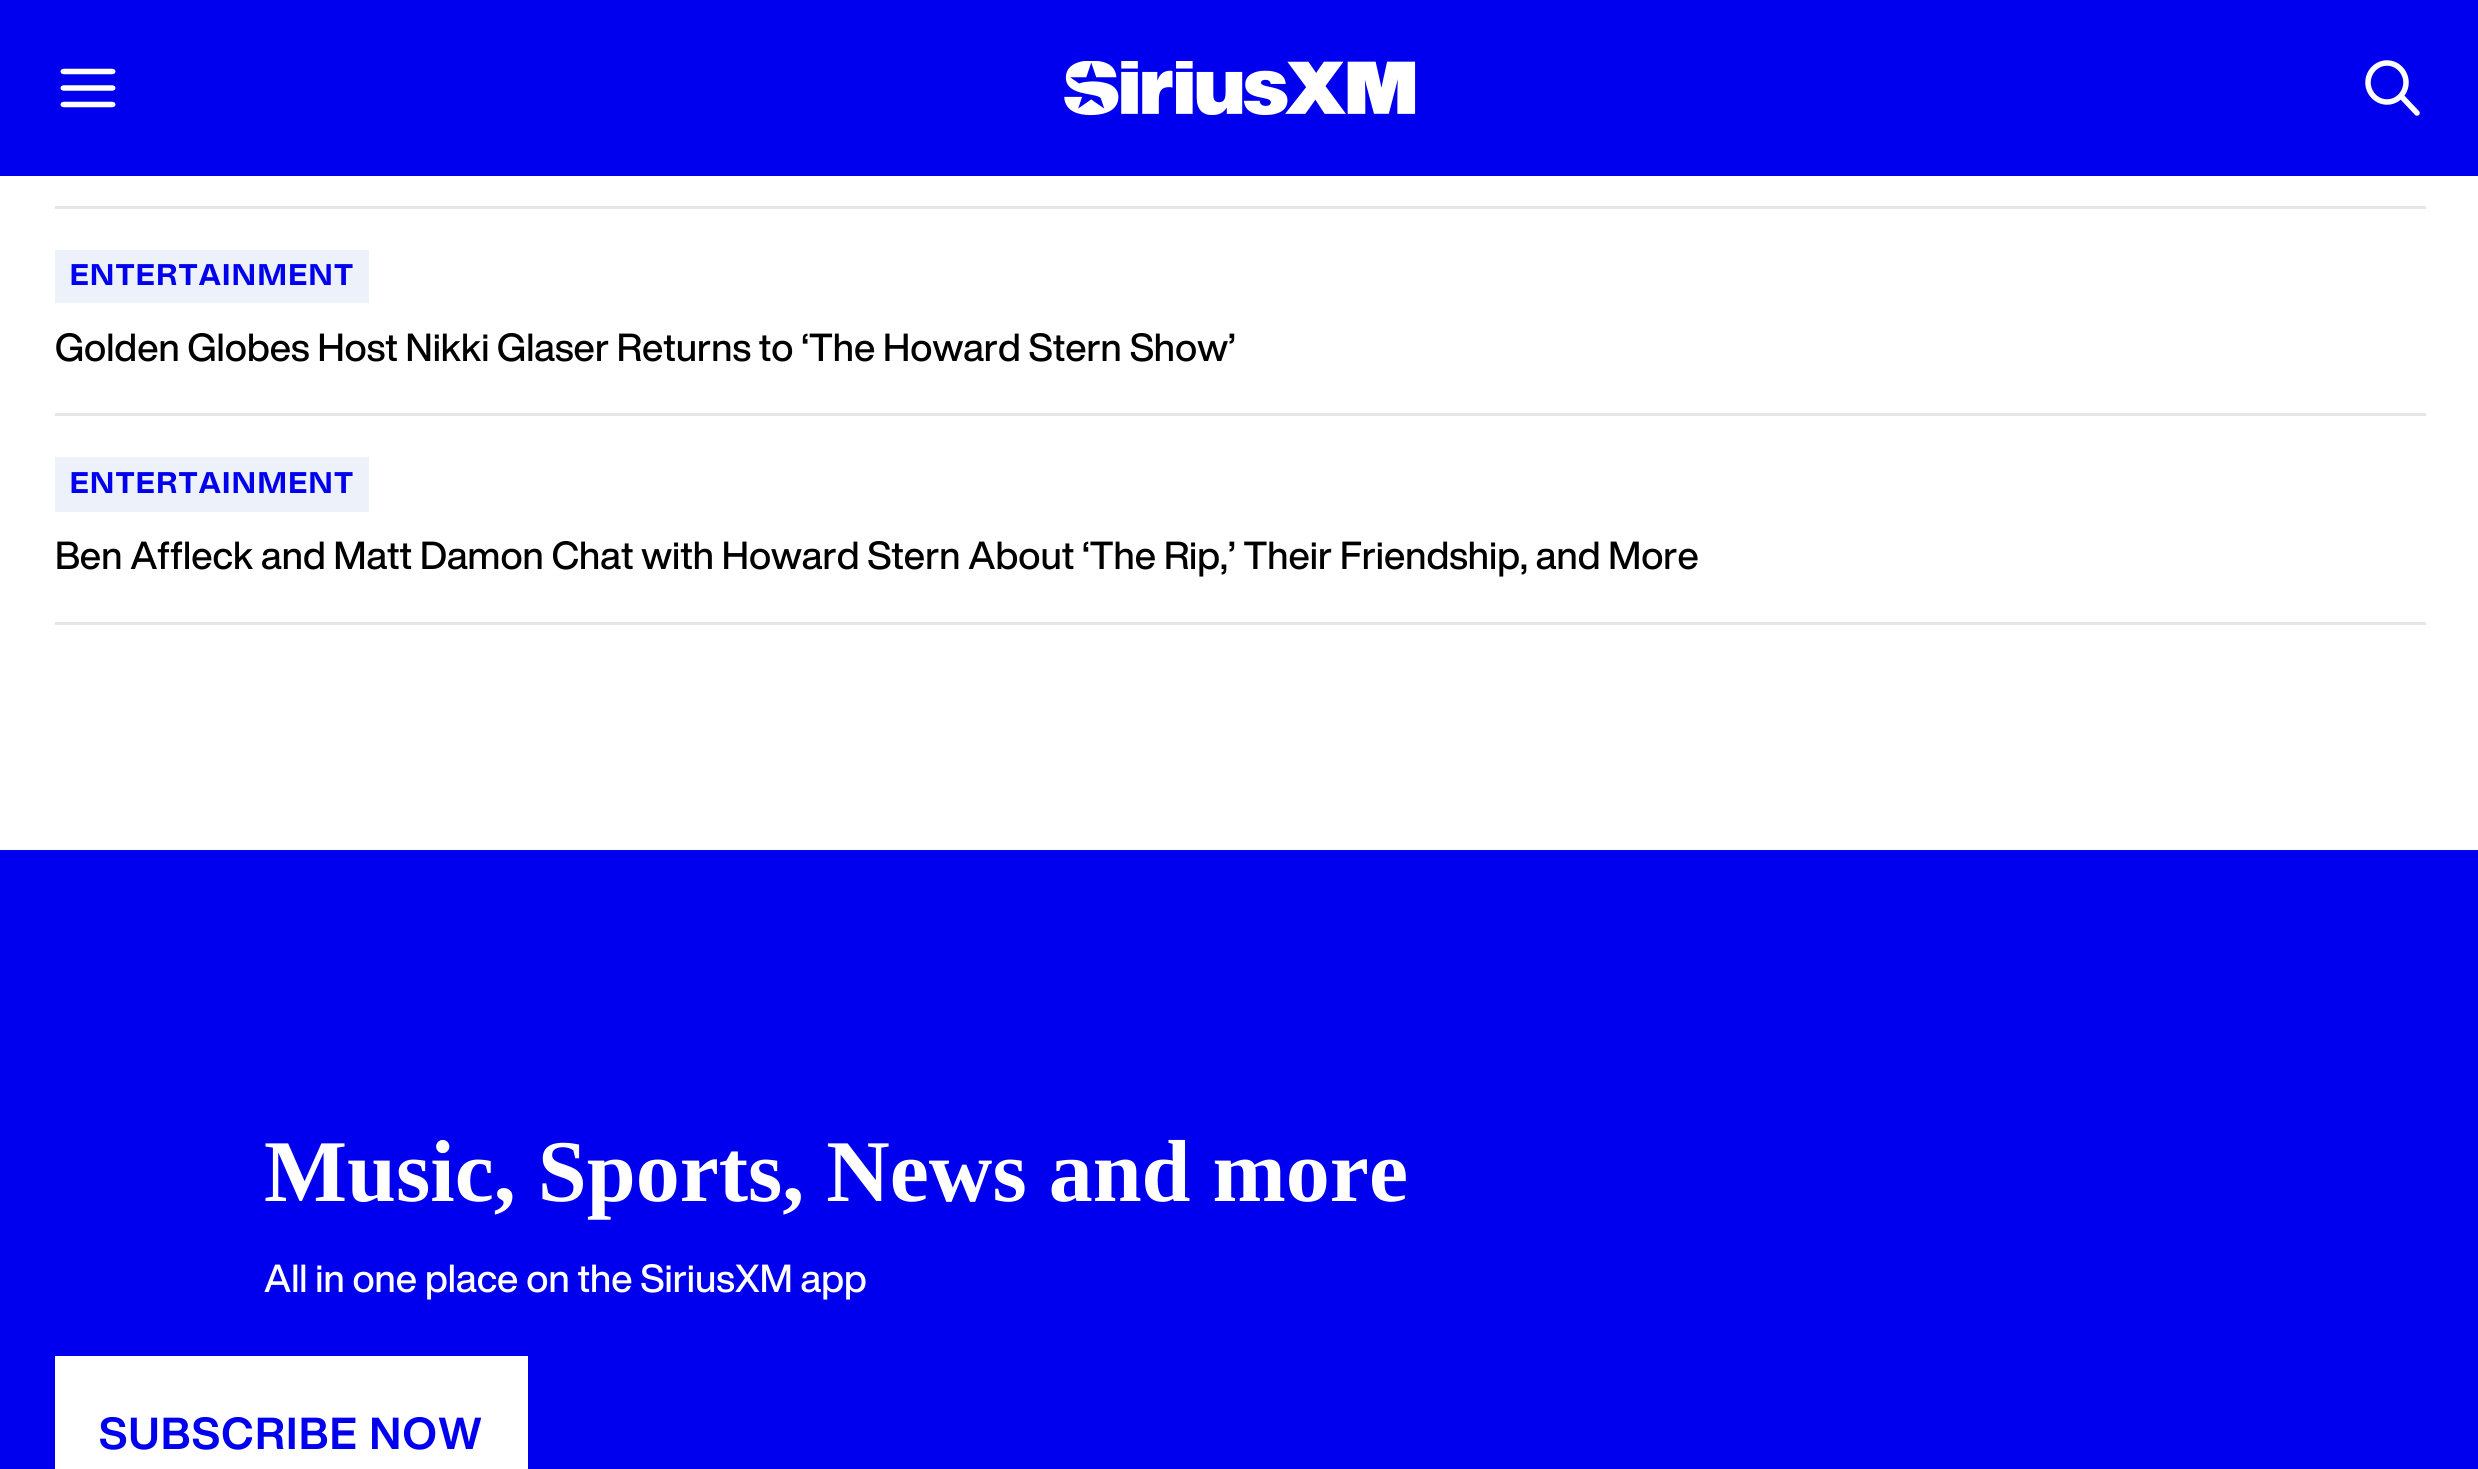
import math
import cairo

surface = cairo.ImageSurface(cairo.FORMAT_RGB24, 2478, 1469)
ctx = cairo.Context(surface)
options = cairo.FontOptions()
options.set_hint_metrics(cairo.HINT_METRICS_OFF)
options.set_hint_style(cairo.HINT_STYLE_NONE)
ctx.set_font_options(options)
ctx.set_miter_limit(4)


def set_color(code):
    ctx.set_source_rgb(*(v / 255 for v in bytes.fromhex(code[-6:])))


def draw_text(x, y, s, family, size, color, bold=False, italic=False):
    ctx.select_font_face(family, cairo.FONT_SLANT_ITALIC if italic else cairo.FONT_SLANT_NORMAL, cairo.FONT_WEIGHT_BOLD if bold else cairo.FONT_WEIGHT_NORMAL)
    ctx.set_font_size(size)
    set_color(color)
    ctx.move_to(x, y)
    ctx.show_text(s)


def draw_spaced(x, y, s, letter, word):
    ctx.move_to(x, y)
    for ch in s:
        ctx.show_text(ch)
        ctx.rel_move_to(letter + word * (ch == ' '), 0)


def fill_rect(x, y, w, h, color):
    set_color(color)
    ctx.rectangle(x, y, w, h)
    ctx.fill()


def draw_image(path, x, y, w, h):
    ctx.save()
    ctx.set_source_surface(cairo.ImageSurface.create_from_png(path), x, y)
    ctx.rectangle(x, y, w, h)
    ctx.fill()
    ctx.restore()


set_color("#ffffff")
ctx.paint()
fill_rect(0, 0, 2478, 176, "#0000ef")
draw_image("assets/img1.png", 60, 68, 56, 40)
draw_image("assets/img2.png", 1064, 61, 352, 55)
ctx.new_path()
ctx.move_to(2387, 102)
ctx.curve_to(2397.5, 102, 2406, 93, 2406, 82.5)
ctx.curve_to(2406, 72, 2397.5, 63, 2387, 63)
ctx.curve_to(2376.5, 63, 2368, 72, 2368, 82.5)
ctx.curve_to(2368, 93, 2376.5, 102, 2387, 102)
ctx.close_path()
ctx.move_to(2417, 113)
ctx.line_to(2401, 96)
set_color("#ffffff")
ctx.set_line_width(5.5)
ctx.set_line_cap(cairo.LINE_CAP_ROUND)
ctx.set_line_join(cairo.LINE_JOIN_ROUND)
ctx.stroke()
fill_rect(55, 206, 2371, 3, "#e6e6e6")
fill_rect(55, 413, 2371, 3, "#e6e6e6")
fill_rect(55, 250, 314, 53, "#ecf1fa")
draw_text(69, 285, "ENTERTAINMENT", "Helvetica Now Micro", 28.5, "#0000ef", bold=True)
draw_text(55, 361, "Golden Globes Host Nikki Glaser Returns to ‘The Howard Stern Show’", "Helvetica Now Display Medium", 38.5, "#000000")
fill_rect(55, 622, 2371, 3, "#e6e6e6")
fill_rect(55, 457, 314, 55, "#ecf1fa")
draw_text(69, 493, "ENTERTAINMENT", "Helvetica Now Micro", 28.5, "#0000ef", bold=True)
draw_text(55, 569, "Ben Affleck and Matt Damon Chat with Howard Stern About ‘The Rip,’ Their Friendship, and More", "Helvetica Now Display Medium", 38.5, "#000000")
fill_rect(0, 850, 2478, 619, "#0000ef")
draw_text(264, 1201, "Music, Sports, News and more", "Liberation Serif", 88, "#ffffff", bold=True)
draw_text(264, 1292, "All in one place on the SiriusXM app", "Helvetica Now Display Medium", 38.5, "#ffffff")
fill_rect(55, 1356, 473, 113, "#ffffff")
ctx.select_font_face("Helvetica Now Display", cairo.FONT_SLANT_NORMAL, cairo.FONT_WEIGHT_BOLD)
ctx.set_font_size(44)
set_color("#0000ef")
draw_spaced(99, 1449, "SUBSCRIBE NOW", 1.75, 0)
surface.write_to_png("output.png")
